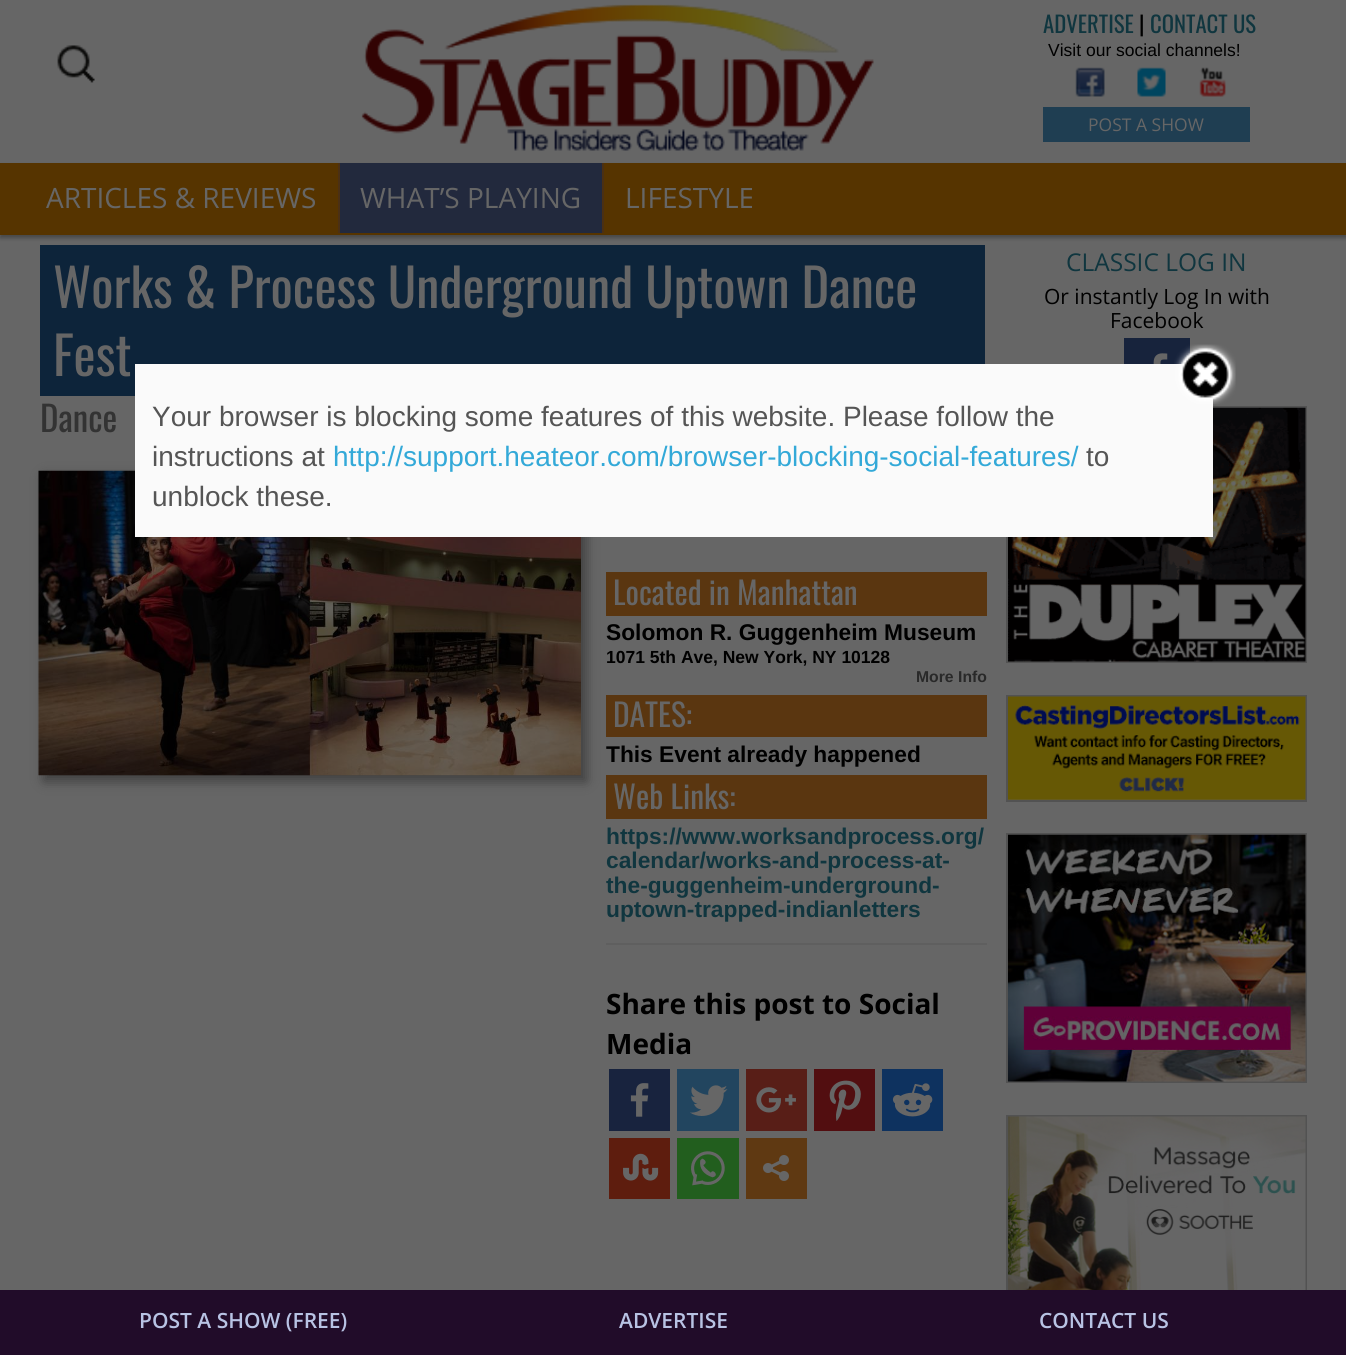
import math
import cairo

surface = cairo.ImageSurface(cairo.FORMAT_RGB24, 1346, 1355)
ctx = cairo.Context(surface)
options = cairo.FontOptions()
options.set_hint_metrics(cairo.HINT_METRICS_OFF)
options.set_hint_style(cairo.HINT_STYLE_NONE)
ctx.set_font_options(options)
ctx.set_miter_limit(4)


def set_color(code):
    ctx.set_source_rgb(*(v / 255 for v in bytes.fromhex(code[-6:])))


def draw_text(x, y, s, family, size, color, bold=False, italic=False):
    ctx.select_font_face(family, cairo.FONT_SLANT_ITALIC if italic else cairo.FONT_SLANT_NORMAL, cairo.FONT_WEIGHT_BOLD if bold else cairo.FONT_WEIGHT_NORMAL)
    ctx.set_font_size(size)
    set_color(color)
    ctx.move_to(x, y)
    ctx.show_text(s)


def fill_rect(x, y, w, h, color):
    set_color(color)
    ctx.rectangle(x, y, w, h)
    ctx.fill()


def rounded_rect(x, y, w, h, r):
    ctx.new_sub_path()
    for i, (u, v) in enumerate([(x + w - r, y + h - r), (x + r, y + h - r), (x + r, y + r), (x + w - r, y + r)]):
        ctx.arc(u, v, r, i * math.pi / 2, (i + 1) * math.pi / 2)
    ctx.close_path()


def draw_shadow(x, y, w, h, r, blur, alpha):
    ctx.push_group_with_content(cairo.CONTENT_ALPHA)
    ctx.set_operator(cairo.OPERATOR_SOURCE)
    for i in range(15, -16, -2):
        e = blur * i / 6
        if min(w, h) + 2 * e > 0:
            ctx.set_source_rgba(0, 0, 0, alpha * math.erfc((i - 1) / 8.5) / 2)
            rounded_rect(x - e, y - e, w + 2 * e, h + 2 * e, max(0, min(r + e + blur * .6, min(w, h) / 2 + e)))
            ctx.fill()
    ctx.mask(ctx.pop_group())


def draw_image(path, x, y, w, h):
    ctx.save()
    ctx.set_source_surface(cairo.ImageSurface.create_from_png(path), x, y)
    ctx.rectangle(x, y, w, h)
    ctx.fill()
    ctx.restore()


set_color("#666666")
ctx.paint()
draw_image("assets/img1.png", 57, 45, 38, 38)
draw_image("assets/img2.png", 361, 4, 513, 147)
draw_text(1043, 33, "ADVERTISE", "Oswald", 22.75, "#10363f")
draw_text(1139, 33, "|", "Oswald", 22.75, "#000000")
draw_text(1150, 33, "CONTACT US", "Oswald", 22.75, "#10363f")
draw_text(1048, 56, "Visit our social channels!", "Liberation Sans", 17.5, "#000000")
draw_image("assets/img3.png", 1075, 67, 30, 30)
draw_image("assets/img4.png", 1137, 67, 29, 30)
draw_image("assets/img5.png", 1199, 67, 27, 30)
fill_rect(1043, 107, 207, 35, "#1f3e52")
draw_text(1088, 131, "POST A SHOW", "Open Sans", 17.5, "#666666")
set_color("#000000")
draw_shadow(0, 166, 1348, 72, 0, 2, 0.3)
fill_rect(0, 163, 1346, 72, "#563400")
fill_rect(338, 163, 2, 70, "#4b3014")
draw_text(46, 208, "ARTICLES & REVIEWS", "Open Sans", 28, "#666666")
fill_rect(340, 163, 262, 70, "#22293d")
fill_rect(602, 163, 2, 70, "#4b3014")
draw_text(360, 208, "WHAT’S PLAYING", "Open Sans", 28, "#666666")
draw_text(625, 208, "LIFESTYLE", "Open Sans", 28, "#666666")
fill_rect(40, 245, 945, 151, "#0d243a")
draw_text(53, 308, "Works & Process Underground Uptown Dance", "Oswald", 52.5, "#666666")
draw_text(53, 376, "Fest", "Oswald", 52.5, "#666666")
draw_text(40, 432, "Dance", "Oswald", 35, "#333333")
set_color("#3d3d3d")
draw_shadow(44, 476, 542, 305, 0, 6, 1)
draw_image("assets/img6.png", 38, 470, 543, 306)
fill_rect(606, 572, 381, 44, "#5a3610")
draw_text(613, 605, "Located in Manhattan", "Oswald", 31.5, "#666666")
draw_text(606, 640, "Solomon R. Guggenheim Museum", "Liberation Sans", 22.75, "#000000", bold=True)
draw_text(606, 663, "1071 5th Ave, New York, NY 10128", "Liberation Sans", 17.5, "#000000", bold=True)
draw_text(916, 682, "More Info", "Liberation Sans", 15.75, "#292929", bold=True)
fill_rect(606, 695, 381, 42, "#5a3610")
draw_text(613, 727, "DATES:", "Oswald", 31.5, "#666666")
draw_text(606, 762, "This Event already happened", "Liberation Sans", 22.75, "#000000", bold=True)
fill_rect(606, 775, 381, 44, "#5a3610")
draw_text(613, 809, "Web Links:", "Oswald", 31.5, "#666666")
draw_text(606, 844, "https://www.worksandprocess.org/", "Liberation Sans", 22.75, "#10363f", bold=True)
draw_text(606, 868, "calendar/works-and-process-at-", "Liberation Sans", 22.75, "#10363f", bold=True)
draw_text(606, 893, "the-guggenheim-underground-", "Liberation Sans", 22.75, "#10363f", bold=True)
draw_text(606, 917, "uptown-trapped-indianletters", "Liberation Sans", 22.75, "#10363f", bold=True)
fill_rect(606, 943, 381, 2, "#5f5f5f")
draw_text(606, 1014, "Share this post to Social", "Open Sans", 28, "#000000", bold=True)
draw_text(606, 1054, "Media", "Open Sans", 28, "#000000", bold=True)
fill_rect(609, 1069, 61, 62, "#18233e")
draw_image("assets/img7.png", 630, 1083, 19, 34)
fill_rect(677, 1069, 62, 62, "#22455f")
draw_image("assets/img8.png", 690, 1085, 38, 31)
fill_rect(746, 1069, 61, 62, "#581e17")
draw_image("assets/img9.png", 756, 1087, 40, 26)
fill_rect(814, 1069, 61, 62, "#520e10")
draw_image("assets/img10.png", 829, 1080, 32, 41)
fill_rect(882, 1069, 61, 62, "#0e325f")
draw_image("assets/img11.png", 892, 1083, 41, 34)
fill_rect(609, 1138, 61, 61, "#5e1d0e")
draw_image("assets/img12.png", 623, 1153, 36, 28)
fill_rect(677, 1138, 62, 61, "#225e1e")
draw_image("assets/img13.png", 691, 1151, 34, 35)
fill_rect(746, 1138, 61, 61, "#5f3912")
draw_image("assets/img14.png", 763, 1155, 26, 26)
draw_text(1066, 271, "CLASSIC LOG IN", "Open Sans", 24.5, "#10363f")
draw_text(1044, 304, "Or instantly Log In with", "Open Sans", 21, "#000000")
draw_text(1110, 328, "Facebook", "Open Sans", 21, "#000000")
fill_rect(1124, 338, 66, 26, "#17233c")
draw_image("assets/img15.png", 1153, 353, 15, 11)
ctx.rectangle(1007, 407, 299, 255)
set_color("#525252")
ctx.stroke()
draw_image("assets/img16.png", 1008, 407, 298, 255)
ctx.rectangle(1007, 696, 299, 105)
ctx.stroke()
draw_image("assets/img17.png", 1008, 696, 298, 104)
ctx.rectangle(1007, 834, 299, 248)
ctx.stroke()
draw_image("assets/img18.png", 1008, 834, 298, 248)
ctx.rectangle(1007, 1116, 299, 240)
ctx.stroke()
draw_image("assets/img19.png", 1008, 1116, 298, 174)
fill_rect(135, 364, 1078, 173, "#fafafa")
draw_image("assets/img20.png", 1174, 344, 62, 61)
draw_text(152, 426, "Your browser is blocking some features of this website. Please follow the", "Liberation Sans", 28, "#555555")
draw_text(152, 466, "instructions at", "Liberation Sans", 28, "#555555")
draw_text(333, 466, "http://support.heateor.com/browser-blocking-social-features/", "Liberation Sans", 28, "#33a9d8")
draw_text(1086, 466, "to", "Liberation Sans", 28, "#555555")
draw_text(152, 506, "unblock these.", "Liberation Sans", 28, "#555555")
fill_rect(0, 1290, 1346, 65, "#210c29")
draw_text(139, 1328, "POST A SHOW (FREE)", "Open Sans SemiBold", 21, "#b8c3e4")
draw_text(619, 1328, "ADVERTISE", "Open Sans SemiBold", 21, "#b8c3e4")
draw_text(1039, 1328, "CONTACT US", "Open Sans SemiBold", 21, "#b8c3e4")
surface.write_to_png("output.png")
